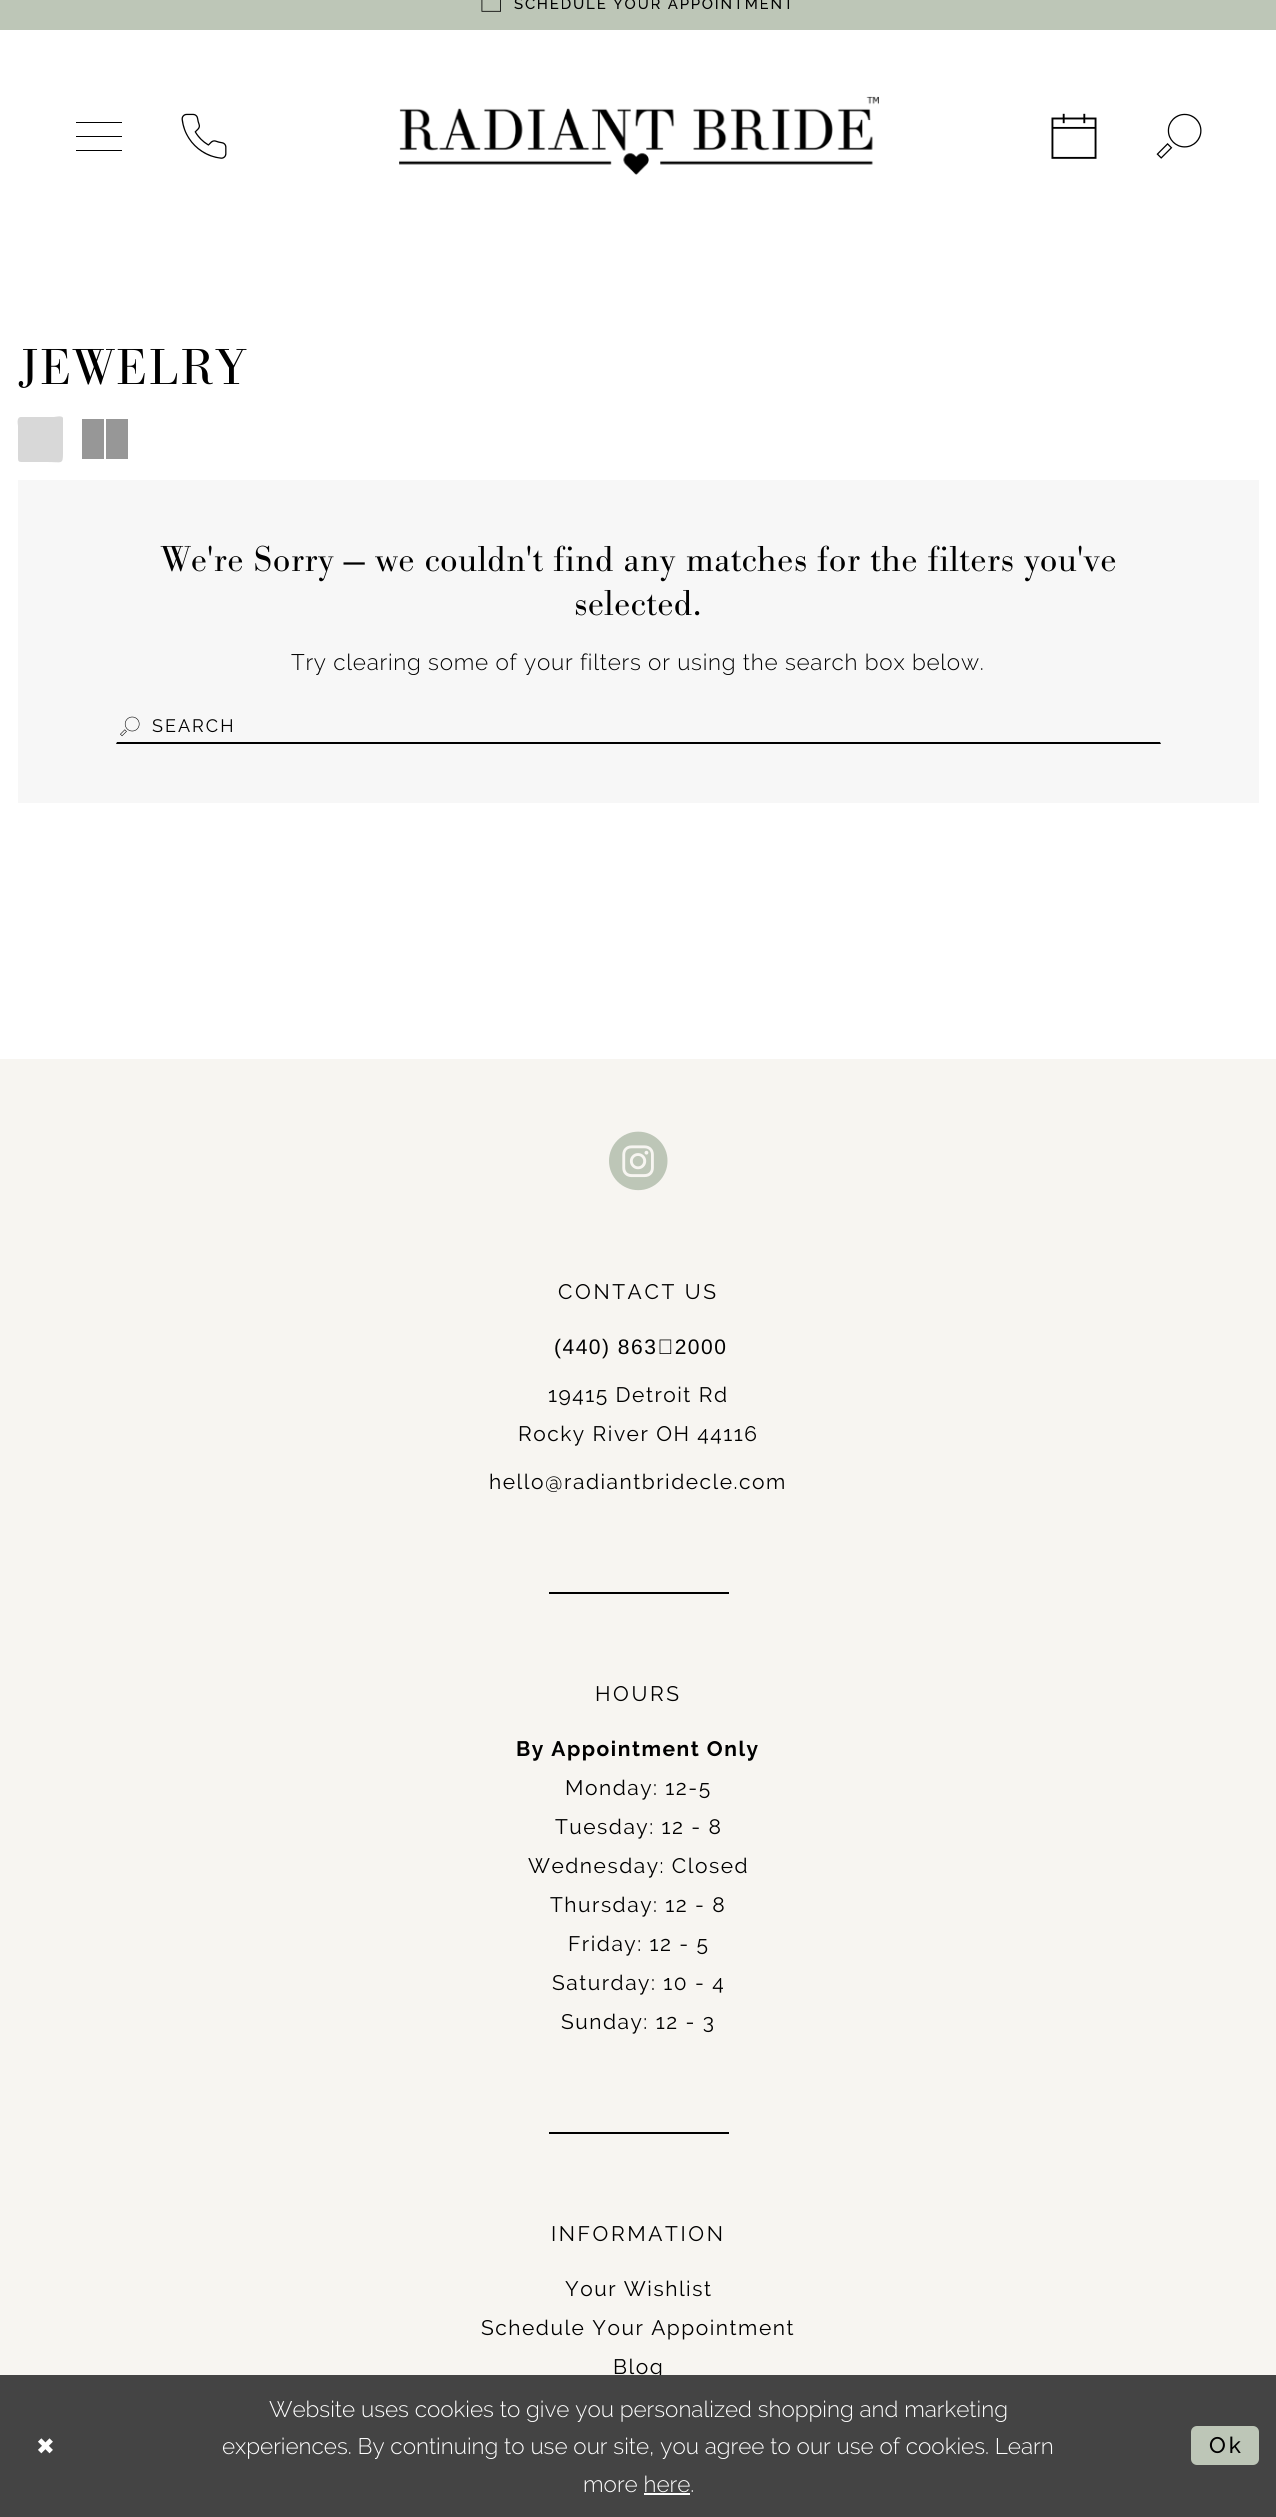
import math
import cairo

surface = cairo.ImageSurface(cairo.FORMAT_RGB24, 1276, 2517)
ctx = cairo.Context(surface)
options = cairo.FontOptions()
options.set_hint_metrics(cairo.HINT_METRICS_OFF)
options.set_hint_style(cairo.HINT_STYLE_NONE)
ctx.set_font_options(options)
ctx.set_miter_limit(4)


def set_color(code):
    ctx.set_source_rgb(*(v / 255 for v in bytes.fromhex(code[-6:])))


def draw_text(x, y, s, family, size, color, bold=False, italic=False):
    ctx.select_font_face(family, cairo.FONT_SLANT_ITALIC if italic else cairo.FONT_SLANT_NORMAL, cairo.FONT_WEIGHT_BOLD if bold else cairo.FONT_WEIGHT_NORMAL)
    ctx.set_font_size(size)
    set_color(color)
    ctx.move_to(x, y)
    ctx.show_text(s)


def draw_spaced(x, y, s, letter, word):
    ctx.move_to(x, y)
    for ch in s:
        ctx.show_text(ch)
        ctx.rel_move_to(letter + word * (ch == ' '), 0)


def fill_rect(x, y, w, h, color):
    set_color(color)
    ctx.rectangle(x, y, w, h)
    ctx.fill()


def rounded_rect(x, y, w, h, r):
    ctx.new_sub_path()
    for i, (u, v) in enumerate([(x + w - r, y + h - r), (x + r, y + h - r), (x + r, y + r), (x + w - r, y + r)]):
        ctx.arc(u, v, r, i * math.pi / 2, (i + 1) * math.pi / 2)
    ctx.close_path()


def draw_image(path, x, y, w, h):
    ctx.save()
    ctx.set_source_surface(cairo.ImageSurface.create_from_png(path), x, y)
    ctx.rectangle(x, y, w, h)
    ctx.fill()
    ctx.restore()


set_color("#ffffff")
ctx.paint()
fill_rect(0, 0, 1276, 30, "#bdc6b7")
draw_image("assets/img1.png", 481, 0, 20, 12)
ctx.select_font_face("Raleway Medium")
ctx.set_font_size(15)
set_color("#000000")
draw_spaced(514, 9, "SCHEDULE YOUR APPOINTMENT", 1.75, 0)
ctx.new_path()
ctx.move_to(76, 122)
ctx.line_to(122, 122)
ctx.line_to(122, 123)
ctx.line_to(76, 123)
ctx.close_path()
ctx.move_to(76, 136)
ctx.line_to(122, 136)
ctx.line_to(122, 137)
ctx.line_to(76, 137)
ctx.close_path()
ctx.move_to(76, 150)
ctx.line_to(122, 150)
ctx.line_to(122, 151)
ctx.line_to(76, 151)
ctx.close_path()
ctx.fill()
draw_image("assets/img2.png", 181, 113, 46, 46)
draw_image("assets/img3.png", 399, 96, 480, 79)
draw_image("assets/img4.png", 1051, 113, 46, 46)
draw_image("assets/img5.png", 1156, 113, 46, 46)
ctx.select_font_face("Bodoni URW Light")
ctx.set_font_size(52.5)
draw_spaced(18, 384, "JEWELRY", 2, 0)
set_color("#d8d8d8")
ctx.new_path()
ctx.move_to(21, 417)
ctx.line_to(54, 417)
ctx.curve_to(55, 417, 62, 415, 63, 418)
ctx.line_to(63, 453)
ctx.curve_to(63, 465, 62, 462, 47, 462)
ctx.line_to(27, 462)
ctx.curve_to(17, 462, 18, 463, 18, 453)
ctx.line_to(18, 426)
ctx.curve_to(18, 425, 16, 417, 21, 417)
ctx.close_path()
ctx.fill()
set_color("#979797")
ctx.new_path()
ctx.move_to(82, 419)
ctx.line_to(104, 419)
ctx.line_to(104, 459)
ctx.line_to(82, 459)
ctx.close_path()
ctx.move_to(106, 419)
ctx.line_to(128, 419)
ctx.line_to(128, 459)
ctx.line_to(106, 459)
ctx.close_path()
ctx.fill()
fill_rect(18, 480, 1241, 323, "#f7f7f7")
ctx.set_font_size(37.5)
set_color("#000000")
draw_spaced(161, 571, "We're Sorry — we couldn't find any matches for the filters you've", 0.38, 0)
draw_spaced(574, 615, "selected.", 0.38, 0)
ctx.select_font_face("Raleway Light")
ctx.set_font_size(22.5)
draw_spaced(291, 670, "Try clearing some of your filters or using the search box below.", 0.75, 0)
draw_image("assets/img6.png", 120, 716, 20, 21)
ctx.new_path()
ctx.move_to(1161, 744)
ctx.line_to(116, 744)
ctx.line_to(117, 742)
ctx.line_to(1160, 742)
ctx.close_path()
ctx.fill()
ctx.select_font_face("Raleway")
ctx.set_font_size(18)
draw_spaced(152, 732, "SEARCH", 2, 0)
fill_rect(0, 1059, 1276, 1316, "#f7f5f1")
draw_image("assets/img7.png", 609, 1131, 59, 60)
ctx.set_font_size(21)
set_color("#000000")
draw_spaced(558, 1299, "CONTACT US", 2.6, 0)
ctx.select_font_face("Liberation Sans")
draw_spaced(554, 1354, "(440) 863‑2000", 1.5, 0)
ctx.select_font_face("Raleway")
draw_spaced(548, 1402, "19415 Detroit Rd", 1.5, 0)
draw_spaced(518, 1441, "Rocky River OH 44116", 1.5, 0)
draw_spaced(489, 1489, "hello@radiantbridecle.com", 1.5, 0)
fill_rect(549, 1592, 180, 2, "#000000")
draw_spaced(595, 1701, "HOURS", 2.6, 0)
ctx.select_font_face("Raleway", cairo.FONT_SLANT_NORMAL, cairo.FONT_WEIGHT_BOLD)
draw_spaced(516, 1756, "By Appointment Only", 1.5, 0)
ctx.select_font_face("Raleway")
draw_spaced(565, 1795, "Monday: 12-5", 1.5, 0)
draw_spaced(555, 1834, "Tuesday: 12 - 8", 1.5, 0)
draw_spaced(528, 1873, "Wednesday: Closed", 1.5, 0)
draw_spaced(550, 1912, "Thursday: 12 - 8", 1.5, 0)
draw_spaced(568, 1951, "Friday: 12 - 5", 1.5, 0)
draw_spaced(552, 1990, "Saturday: 10 - 4", 1.5, 0)
draw_spaced(561, 2029, "Sunday: 12 - 3", 1.5, 0)
fill_rect(549, 2132, 180, 2, "#000000")
draw_spaced(551, 2241, "INFORMATION", 2.6, 0)
draw_spaced(565, 2296, "Your Wishlist", 1.5, 0)
draw_spaced(481, 2335, "Schedule Your Appointment", 1.5, 0)
draw_spaced(613, 2374, "Blog", 1.5, 0)
fill_rect(0, 2375, 1276, 142, "#444444")
ctx.select_font_face("DejaVu Sans")
ctx.set_font_size(22.5)
set_color("#ffffff")
draw_spaced(36, 2454, "✖", 3, 0)
draw_text(269, 2417, "Website uses cookies to give you personalized shopping and marketing", "Raleway Light", 22.5, "#ffffff")
draw_text(222, 2454, "experiences. By continuing to use our site, you agree to our use of cookies. Learn", "Raleway Light", 22.5, "#ffffff")
draw_text(583, 2492, "more here.", "Raleway Light", 22.5, "#ffffff")
fill_rect(644, 2493, 46, 2, "#ffffff")
set_color("#bdc6b7")
rounded_rect(1191, 2426, 68, 39, 6)
ctx.fill()
ctx.select_font_face("Raleway Medium")
set_color("#000000")
draw_spaced(1209, 2453, "Ok", 3, 0)
surface.write_to_png("output.png")
